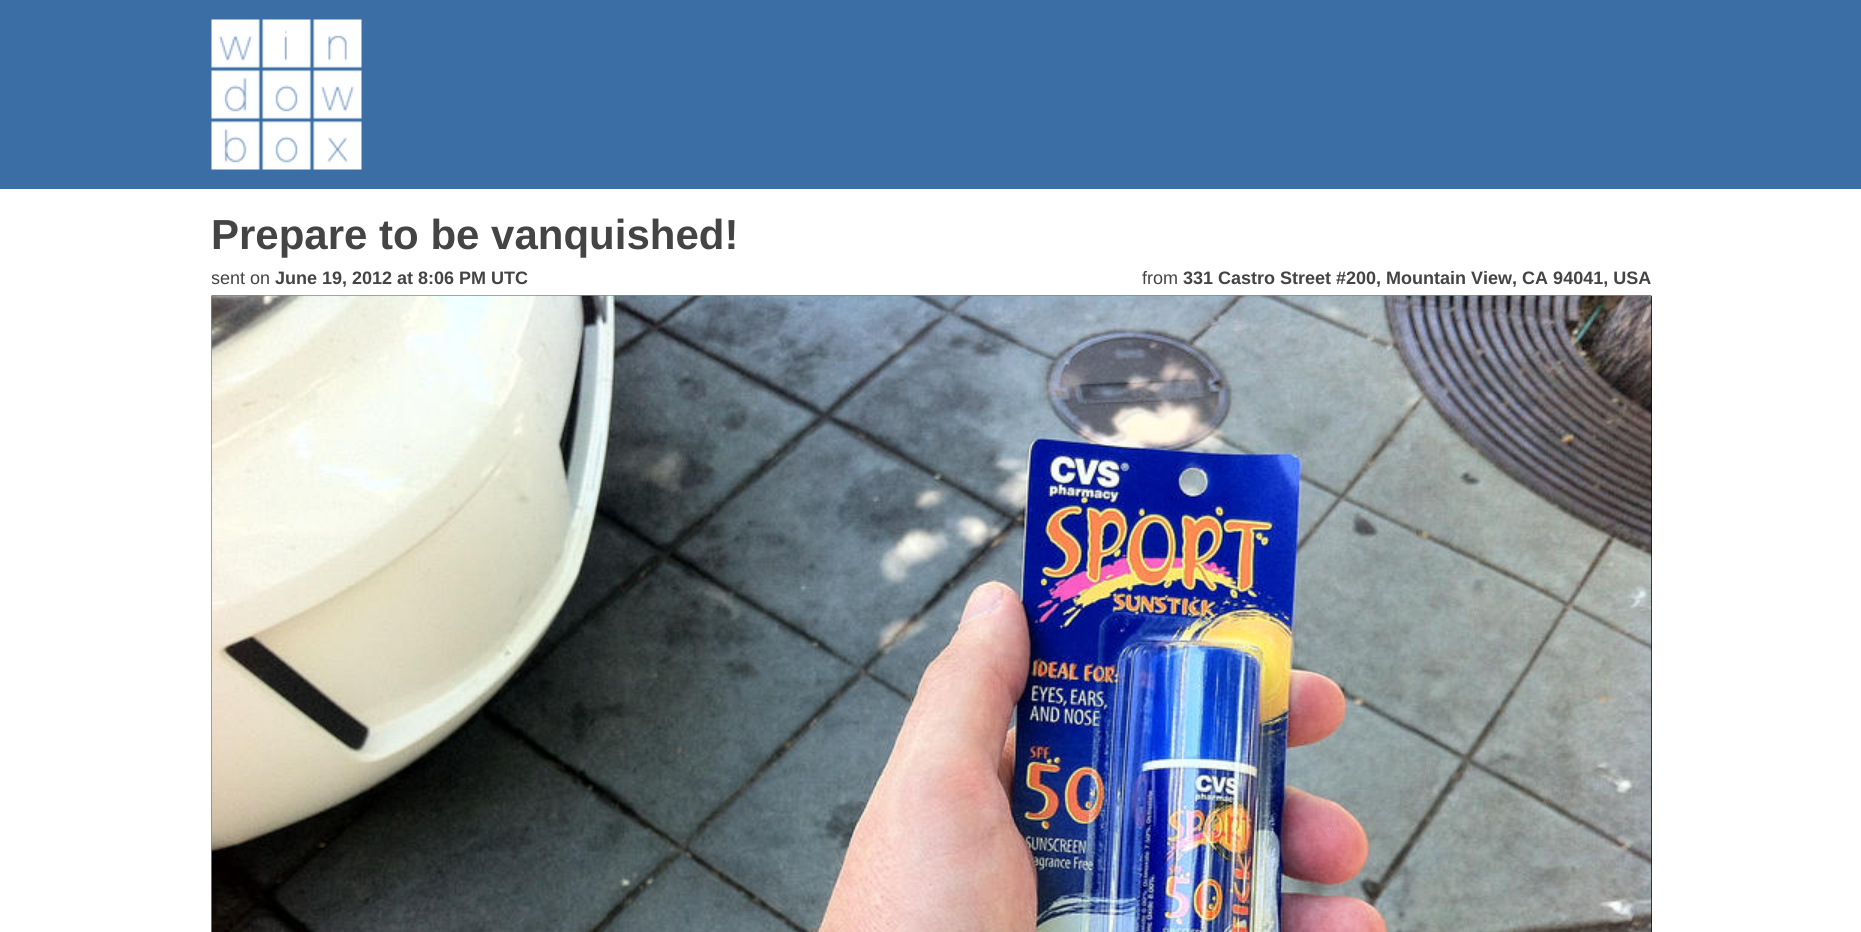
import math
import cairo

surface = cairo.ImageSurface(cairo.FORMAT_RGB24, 1861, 932)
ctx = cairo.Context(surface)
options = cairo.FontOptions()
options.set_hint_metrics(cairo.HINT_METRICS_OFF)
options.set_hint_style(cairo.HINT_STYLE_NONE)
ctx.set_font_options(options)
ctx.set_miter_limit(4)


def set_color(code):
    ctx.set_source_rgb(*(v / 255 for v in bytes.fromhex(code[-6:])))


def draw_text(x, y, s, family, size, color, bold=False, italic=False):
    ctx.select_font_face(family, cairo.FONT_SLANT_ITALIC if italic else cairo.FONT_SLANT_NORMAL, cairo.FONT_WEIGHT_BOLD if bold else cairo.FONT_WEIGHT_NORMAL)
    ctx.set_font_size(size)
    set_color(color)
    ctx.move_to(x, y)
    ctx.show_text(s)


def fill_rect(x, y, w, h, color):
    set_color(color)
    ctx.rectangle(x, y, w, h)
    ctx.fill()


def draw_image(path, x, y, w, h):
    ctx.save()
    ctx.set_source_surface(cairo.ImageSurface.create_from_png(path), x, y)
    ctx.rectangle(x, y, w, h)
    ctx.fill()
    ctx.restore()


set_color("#3a6ea5")
ctx.paint()
draw_image("assets/img1.png", 211, 19, 151, 151)
fill_rect(0, 189, 1861, 743, "#ffffff")
draw_text(211, 249, "Prepare to be vanquished!", "Liberation Sans", 42, "#444444", bold=True)
ctx.save()
ctx.rectangle(212, 267, 1440, 29)
ctx.clip()
draw_text(211, 284, "sent on", "Liberation Sans", 18, "#444444")
ctx.restore()
draw_text(275, 284, "June 19, 2012 at 8:06 PM UTC", "Liberation Sans", 18, "#444444", bold=True)
draw_text(1142, 284, "from", "Liberation Sans", 18, "#444444")
draw_text(1183, 284, "331 Castro Street #200, Mountain View, CA 94041, USA", "Liberation Sans", 18, "#444444", bold=True)
fill_rect(1651, 296, 1, 636, "#111111")
draw_image("assets/img2.png", 211, 295, 1441, 637)
draw_image("assets/img3.png", 211, 295, 1441, 637)
draw_image("assets/img4.png", 1651, 786, 1, 83)
surface.write_to_png("output.png")
